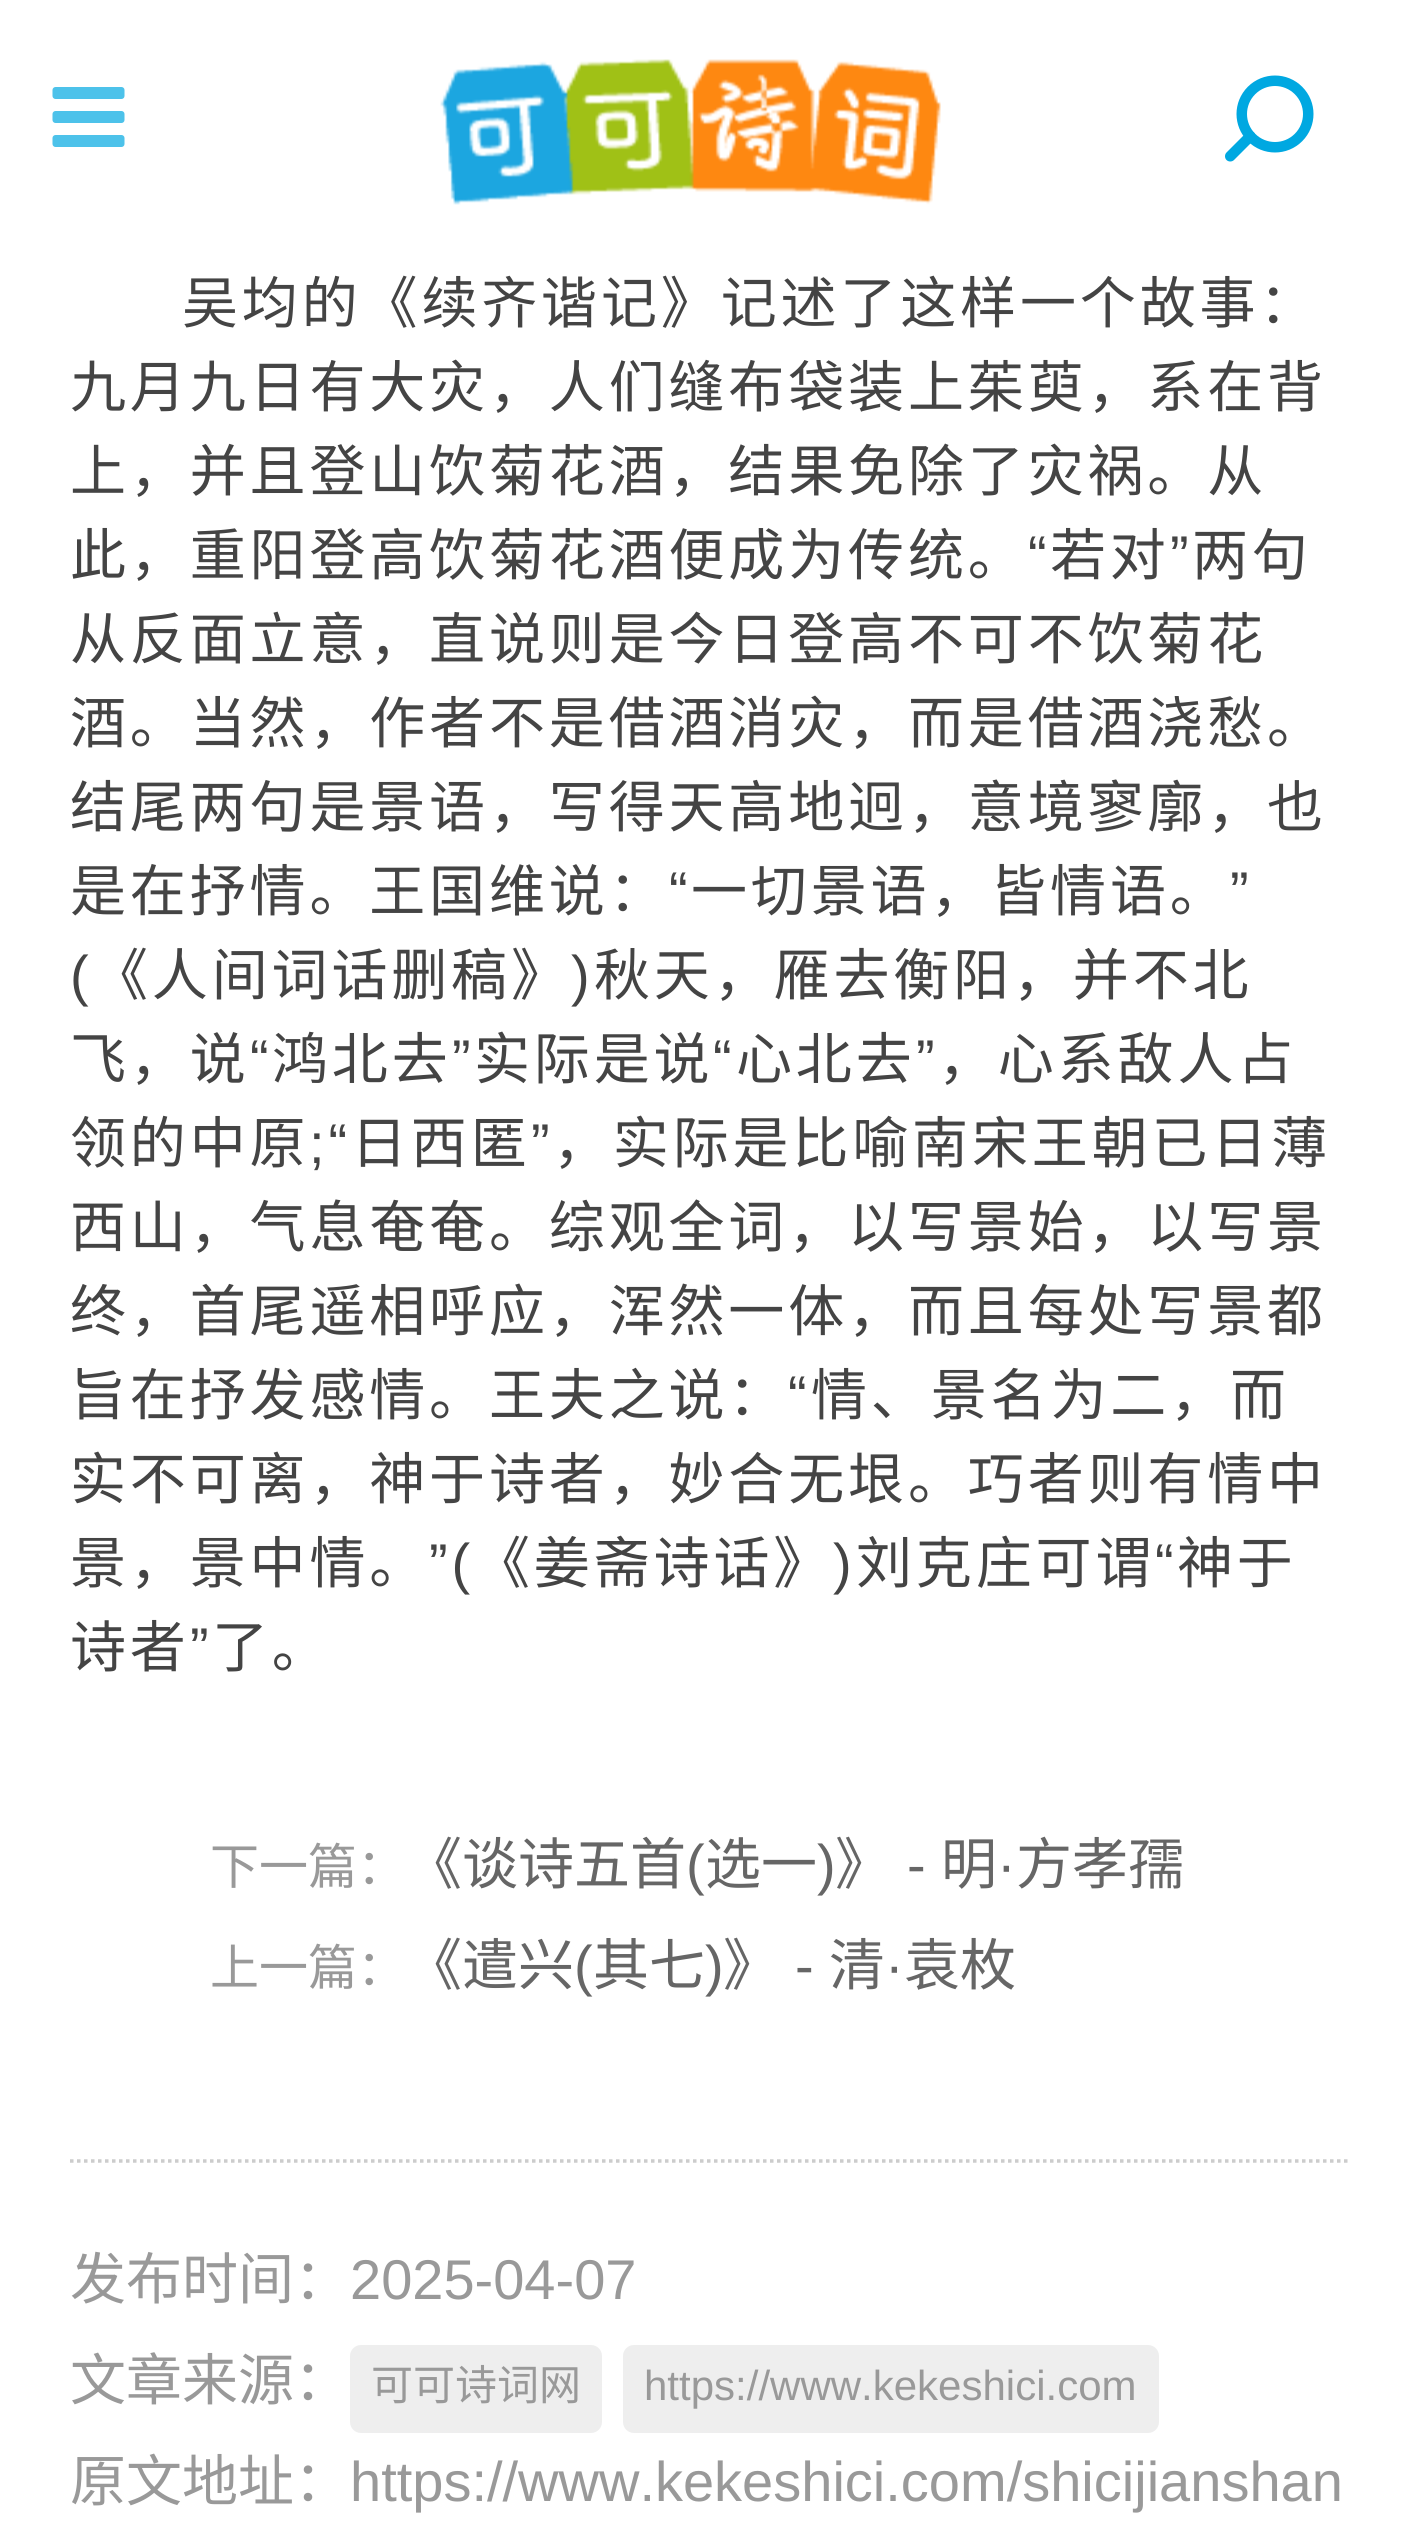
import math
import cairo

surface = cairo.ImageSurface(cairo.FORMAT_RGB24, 1416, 2548)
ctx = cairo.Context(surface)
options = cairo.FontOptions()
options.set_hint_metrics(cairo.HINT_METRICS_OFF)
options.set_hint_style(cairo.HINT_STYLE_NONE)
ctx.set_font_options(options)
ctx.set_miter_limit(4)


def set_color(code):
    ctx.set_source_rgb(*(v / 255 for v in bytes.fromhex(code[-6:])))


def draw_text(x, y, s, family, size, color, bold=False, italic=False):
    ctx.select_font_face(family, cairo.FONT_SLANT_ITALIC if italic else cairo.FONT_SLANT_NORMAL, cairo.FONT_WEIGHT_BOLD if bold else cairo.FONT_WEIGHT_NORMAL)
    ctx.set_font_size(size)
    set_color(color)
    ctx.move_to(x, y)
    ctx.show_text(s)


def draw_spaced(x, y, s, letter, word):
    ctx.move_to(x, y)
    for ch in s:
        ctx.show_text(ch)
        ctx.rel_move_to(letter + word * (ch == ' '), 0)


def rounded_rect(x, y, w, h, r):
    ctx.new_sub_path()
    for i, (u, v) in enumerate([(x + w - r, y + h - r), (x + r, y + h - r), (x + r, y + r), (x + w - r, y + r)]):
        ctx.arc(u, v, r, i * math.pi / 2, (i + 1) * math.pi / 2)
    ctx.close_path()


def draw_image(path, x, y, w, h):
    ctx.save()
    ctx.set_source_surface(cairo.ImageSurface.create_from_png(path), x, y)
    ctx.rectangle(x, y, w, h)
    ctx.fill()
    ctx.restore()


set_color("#ffffff")
ctx.paint()
draw_image("assets/img1.png", 52, 87, 73, 60)
draw_image("assets/img2.png", 440, 59, 501, 146)
set_color("#00a8e1")
ctx.new_path()
ctx.move_to(1254, 132.5)
ctx.curve_to(1256, 135, 1256, 138, 1254, 140)
ctx.line_to(1234, 160)
ctx.curve_to(1232, 162, 1228.5, 162, 1226.5, 160)
ctx.curve_to(1224.5, 158, 1224.5, 154.5, 1226.5, 152.5)
ctx.line_to(1246.5, 132.5)
ctx.curve_to(1248.5, 130.5, 1252, 130.5, 1254, 132.5)
ctx.close_path()
ctx.fill()
ctx.new_path()
ctx.move_to(1298.5, 90.5)
ctx.curve_to(1311.5, 103.5, 1311.5, 124.5, 1298.5, 137.5)
ctx.curve_to(1285.5, 150.5, 1264.5, 150.5, 1251.5, 137.5)
ctx.curve_to(1238.5, 124.5, 1238.5, 103.5, 1251.5, 90.5)
ctx.curve_to(1264.5, 77.5, 1285.5, 77.5, 1298.5, 90.5)
ctx.close_path()
ctx.set_line_width(10.5)
ctx.stroke()
ctx.select_font_face("Noto Sans CJK SC")
ctx.set_font_size(56)
set_color("#444444")
draw_spaced(182, 323, "吴均的《续齐谐记》记述了这样一个故事：", 3.85, 0)
draw_spaced(70, 407, "九月九日有大灾，人们缝布袋装上茱萸，系在背", 3.85, 0)
draw_spaced(70, 491, "上，并且登山饮菊花酒，结果免除了灾祸。从", 3.85, 0)
draw_spaced(70, 575, "此，重阳登高饮菊花酒便成为传统。", 3.85, 0)
ctx.select_font_face("Liberation Sans")
draw_spaced(1028, 575, "“", 3.85, 0)
ctx.select_font_face("Noto Sans CJK SC")
draw_spaced(1050, 575, "若对", 3.85, 0)
ctx.select_font_face("Liberation Sans")
draw_spaced(1170, 575, "”", 3.85, 0)
ctx.select_font_face("Noto Sans CJK SC")
draw_spaced(1192, 575, "两句", 3.85, 0)
draw_spaced(70, 659, "从反面立意，直说则是今日登高不可不饮菊花", 3.85, 0)
draw_spaced(70, 743, "酒。当然，作者不是借酒消灾，而是借酒浇愁。", 3.85, 0)
draw_spaced(70, 827, "结尾两句是景语，写得天高地迥，意境寥廓，也", 3.85, 0)
draw_spaced(70, 911, "是在抒情。王国维说：", 3.85, 0)
ctx.select_font_face("Liberation Sans")
draw_spaced(669, 911, "“", 3.85, 0)
ctx.select_font_face("Noto Sans CJK SC")
draw_spaced(691, 911, "一切景语，皆情语。", 3.85, 0)
ctx.select_font_face("Liberation Sans")
draw_spaced(1230, 911, "”", 3.85, 0)
draw_spaced(70, 995, "(", 3.85, 0)
ctx.select_font_face("Noto Sans CJK SC")
draw_spaced(92, 995, "《人间词话删稿》", 3.85, 0)
ctx.select_font_face("Liberation Sans")
draw_spaced(571, 995, ")", 3.85, 0)
ctx.select_font_face("Noto Sans CJK SC")
draw_spaced(594, 995, "秋天，雁去衡阳，并不北", 3.85, 0)
draw_spaced(70, 1079, "飞，说", 3.85, 0)
ctx.select_font_face("Liberation Sans")
draw_spaced(250, 1079, "“", 3.85, 0)
ctx.select_font_face("Noto Sans CJK SC")
draw_spaced(272, 1079, "鸿北去", 3.85, 0)
ctx.select_font_face("Liberation Sans")
draw_spaced(452, 1079, "”", 3.85, 0)
ctx.select_font_face("Noto Sans CJK SC")
draw_spaced(474, 1079, "实际是说", 3.85, 0)
ctx.select_font_face("Liberation Sans")
draw_spaced(713, 1079, "“", 3.85, 0)
ctx.select_font_face("Noto Sans CJK SC")
draw_spaced(736, 1079, "心北去", 3.85, 0)
ctx.select_font_face("Liberation Sans")
draw_spaced(916, 1079, "”", 3.85, 0)
ctx.select_font_face("Noto Sans CJK SC")
draw_spaced(938, 1079, "，心系敌人占", 3.85, 0)
draw_spaced(70, 1163, "领的中原", 3.85, 0)
ctx.select_font_face("Liberation Sans")
draw_spaced(309, 1163, ";“", 3.85, 0)
ctx.select_font_face("Noto Sans CJK SC")
draw_spaced(351, 1163, "日西匿", 3.85, 0)
ctx.select_font_face("Liberation Sans")
draw_spaced(531, 1163, "”", 3.85, 0)
ctx.select_font_face("Noto Sans CJK SC")
draw_spaced(553, 1163, "，实际是比喻南宋王朝已日薄", 3.85, 0)
draw_spaced(70, 1247, "西山，气息奄奄。综观全词，以写景始，以写景", 3.85, 0)
draw_spaced(70, 1331, "终，首尾遥相呼应，浑然一体，而且每处写景都", 3.85, 0)
draw_spaced(70, 1415, "旨在抒发感情。王夫之说：", 3.85, 0)
ctx.select_font_face("Liberation Sans")
draw_spaced(788, 1415, "“", 3.85, 0)
ctx.select_font_face("Noto Sans CJK SC")
draw_spaced(811, 1415, "情、景名为二，而", 3.85, 0)
draw_spaced(70, 1499, "实不可离，神于诗者，妙合无垠。巧者则有情中", 3.85, 0)
draw_spaced(70, 1583, "景，景中情。", 3.85, 0)
ctx.select_font_face("Liberation Sans")
draw_spaced(429, 1583, "”(", 3.85, 0)
ctx.select_font_face("Noto Sans CJK SC")
draw_spaced(474, 1583, "《姜斋诗话》", 3.85, 0)
ctx.select_font_face("Liberation Sans")
draw_spaced(833, 1583, ")", 3.85, 0)
ctx.select_font_face("Noto Sans CJK SC")
draw_spaced(856, 1583, "刘克庄可谓", 3.85, 0)
ctx.select_font_face("Liberation Sans")
draw_spaced(1155, 1583, "“", 3.85, 0)
ctx.select_font_face("Noto Sans CJK SC")
draw_spaced(1177, 1583, "神于", 3.85, 0)
draw_spaced(70, 1667, "诗者", 3.85, 0)
ctx.select_font_face("Liberation Sans")
draw_spaced(190, 1667, "”", 3.85, 0)
ctx.select_font_face("Noto Sans CJK SC")
draw_spaced(212, 1667, "了。", 3.85, 0)
draw_text(210, 1884, "下一篇：", "Noto Sans CJK SC", 49, "#999999")
draw_text(406, 1884, "《谈诗五首", "Noto Sans CJK SC", 56, "#666666")
draw_text(686, 1884, "(", "Liberation Sans", 56, "#666666")
draw_text(705, 1884, "选一", "Noto Sans CJK SC", 56, "#666666")
draw_text(817, 1884, ")", "Liberation Sans", 56, "#666666")
draw_text(835, 1884, "》", "Noto Sans CJK SC", 56, "#666666")
draw_text(907, 1884, "-", "Liberation Sans", 56, "#666666")
draw_text(941, 1884, "明", "Noto Sans CJK SC", 56, "#666666")
draw_text(997, 1884, "·", "Liberation Sans", 56, "#666666")
draw_text(1016, 1884, "方孝孺", "Noto Sans CJK SC", 56, "#666666")
draw_text(210, 1985, "上一篇：", "Noto Sans CJK SC", 49, "#999999")
draw_text(406, 1985, "《遣兴", "Noto Sans CJK SC", 56, "#666666")
draw_text(574, 1985, "(", "Liberation Sans", 56, "#666666")
draw_text(593, 1985, "其七", "Noto Sans CJK SC", 56, "#666666")
draw_text(705, 1985, ")", "Liberation Sans", 56, "#666666")
draw_text(723, 1985, "》", "Noto Sans CJK SC", 56, "#666666")
draw_text(795, 1985, "-", "Liberation Sans", 56, "#666666")
draw_text(829, 1985, "清", "Noto Sans CJK SC", 56, "#666666")
draw_text(885, 1985, "·", "Liberation Sans", 56, "#666666")
draw_text(904, 1985, "袁枚", "Noto Sans CJK SC", 56, "#666666")
ctx.new_path()
ctx.move_to(70, 2161)
ctx.line_to(1347.5, 2161)
set_color("#cccccc")
ctx.set_line_width(3.5)
ctx.set_dash([3.5, 3.5])
ctx.stroke()
draw_text(70, 2299, "发布时间：", "Noto Sans CJK SC", 56, "#999999")
draw_text(350, 2299, "2025-04-07", "Liberation Sans", 56, "#999999")
draw_text(70, 2400, "文章来源：", "Noto Sans CJK SC", 56, "#999999")
set_color("#eeeeee")
rounded_rect(350, 2345, 252, 88, 11)
ctx.fill()
draw_text(371, 2400, "可可诗词网", "Noto Sans CJK SC", 42, "#999999")
set_color("#eeeeee")
rounded_rect(623, 2345, 536, 88, 11)
ctx.fill()
draw_text(644, 2400, "https://www.kekeshici.com", "Liberation Sans", 42, "#999999")
draw_text(70, 2501, "原文地址：", "Noto Sans CJK SC", 56, "#999999")
draw_text(350, 2501, "https://www.kekeshici.com/shicijianshan", "Liberation Sans", 56, "#999999")
surface.write_to_png("output.png")
